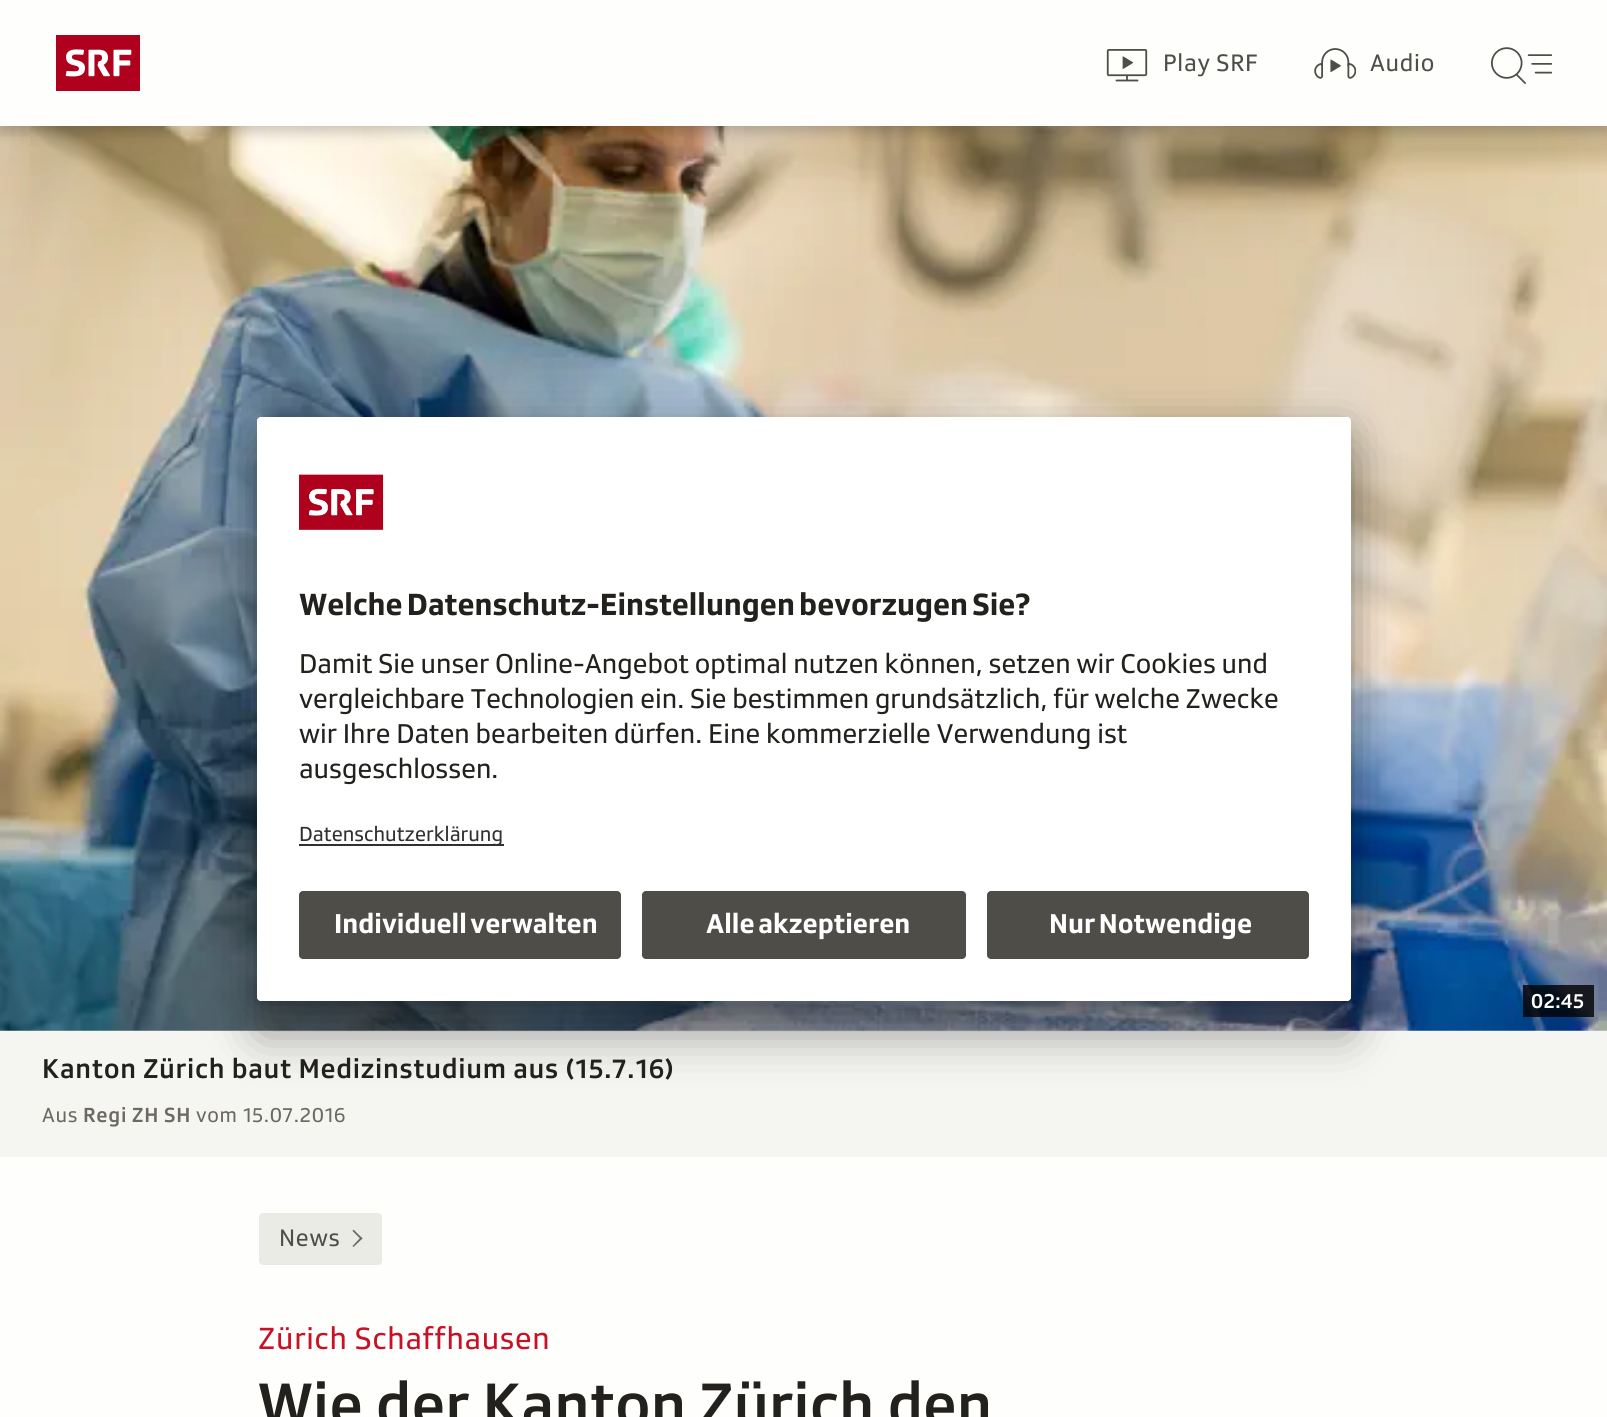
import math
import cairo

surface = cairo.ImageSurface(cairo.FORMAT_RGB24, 1607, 1417)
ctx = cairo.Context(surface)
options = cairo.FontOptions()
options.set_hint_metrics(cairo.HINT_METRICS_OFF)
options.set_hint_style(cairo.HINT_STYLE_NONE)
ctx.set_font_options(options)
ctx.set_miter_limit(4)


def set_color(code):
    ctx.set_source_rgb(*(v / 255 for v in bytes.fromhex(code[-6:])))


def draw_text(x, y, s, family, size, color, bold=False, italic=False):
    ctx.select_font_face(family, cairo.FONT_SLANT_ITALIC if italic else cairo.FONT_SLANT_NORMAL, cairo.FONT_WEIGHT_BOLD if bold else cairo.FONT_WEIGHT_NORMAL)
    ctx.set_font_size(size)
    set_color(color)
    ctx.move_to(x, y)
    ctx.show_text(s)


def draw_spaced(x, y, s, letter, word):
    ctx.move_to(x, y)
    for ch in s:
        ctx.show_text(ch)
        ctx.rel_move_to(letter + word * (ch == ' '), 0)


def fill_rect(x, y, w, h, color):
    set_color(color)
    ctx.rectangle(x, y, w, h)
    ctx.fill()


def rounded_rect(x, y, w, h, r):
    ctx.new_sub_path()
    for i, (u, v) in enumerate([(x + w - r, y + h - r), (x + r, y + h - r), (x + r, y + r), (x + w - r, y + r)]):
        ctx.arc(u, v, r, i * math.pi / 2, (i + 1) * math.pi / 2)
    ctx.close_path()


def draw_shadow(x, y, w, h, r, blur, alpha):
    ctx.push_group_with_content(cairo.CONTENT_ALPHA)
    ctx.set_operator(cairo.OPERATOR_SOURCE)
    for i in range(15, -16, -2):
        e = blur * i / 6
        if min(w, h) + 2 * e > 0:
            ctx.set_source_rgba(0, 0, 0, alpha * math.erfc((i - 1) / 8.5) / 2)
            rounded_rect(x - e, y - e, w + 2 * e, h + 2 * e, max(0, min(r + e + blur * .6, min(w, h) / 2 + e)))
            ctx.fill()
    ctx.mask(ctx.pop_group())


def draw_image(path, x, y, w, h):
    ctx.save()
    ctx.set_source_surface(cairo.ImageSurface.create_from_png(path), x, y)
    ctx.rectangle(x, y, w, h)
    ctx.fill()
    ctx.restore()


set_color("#fefefd")
ctx.paint()
fill_rect(0, 1030, 1607, 127, "#f5f5f2")
draw_image("assets/img6.png", 0, 126, 1607, 905)
set_color("#000000")
draw_shadow(0, 53, 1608, 73, 0, 7, 0.08)
draw_shadow(0, 60, 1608, 73, 0, 7, 0.16)
fill_rect(0, 44, 1607, 82, "#fefefd")
draw_image("assets/img1.png", 56, 35, 84, 56)
draw_image("assets/img2.png", 1106, 49, 42, 33)
ctx.select_font_face("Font")
ctx.set_font_size(24.5)
set_color("#4e4d47")
draw_spaced(1163, 71, "Play SRF", 0.7, 0)
draw_image("assets/img3.png", 1314, 48, 42, 31)
draw_spaced(1370, 71, "Audio", 0.7, 0)
draw_image("assets/img4.png", 1491, 47, 61, 37)
set_color("#000000")
draw_shadow(257, 452, 1094, 584, 4, 24.5, 0.3)
draw_shadow(257, 425, 1094, 585, 4, 23, 0.22)
set_color("#ffffff")
rounded_rect(257, 417, 1094, 584, 4)
ctx.fill()
ctx.save()
rounded_rect(257, 417, 1094, 584, 4)
ctx.clip()
ctx.new_path()
ctx.move_to(261, 417)
ctx.line_to(1347, 417)
ctx.curve_to(1349, 417, 1351, 419, 1351, 421)
ctx.line_to(1351, 877)
ctx.line_to(257, 877)
ctx.line_to(257, 421)
ctx.curve_to(257, 419, 259, 417, 261, 417)
ctx.close_path()
ctx.clip()
fill_rect(257, 418, 1094, 459, "#ffffff")
ctx.restore()
draw_image("assets/img5.png", 299, 474, 85, 56)
ctx.select_font_face("Font", cairo.FONT_SLANT_NORMAL, cairo.FONT_WEIGHT_BOLD)
ctx.set_font_size(31.5)
set_color("#22211d")
draw_spaced(299, 615, "Welche Datenschutz-Einstellungen bevorzugen Sie?", 0, -2)
draw_text(299, 673, "Damit Sie unser Online-Angebot optimal nutzen können, setzen wir Cookies und", "Font", 28, "#22211d")
draw_text(299, 708, "vergleichbare Technologien ein. Sie bestimmen grundsätzlich, für welche Zwecke", "Font", 28, "#22211d")
draw_text(299, 743, "wir Ihre Daten bearbeiten dürfen. Eine kommerzielle Verwendung ist", "Font", 28, "#22211d")
draw_text(299, 778, "ausgeschlossen.", "Font", 28, "#22211d")
fill_rect(299, 844, 205, 2, "#303030")
draw_text(299, 841, "Datenschutzerklärung", "Font", 21, "#303030")
set_color("#ffffff")
ctx.new_path()
ctx.move_to(257, 877)
ctx.line_to(1351, 877)
ctx.line_to(1351, 997)
ctx.curve_to(1351, 999, 1349, 1001, 1347, 1001)
ctx.line_to(261, 1001)
ctx.curve_to(259, 1001, 257, 999, 257, 997)
ctx.close_path()
ctx.fill()
set_color("#4e4d47")
rounded_rect(299, 891, 322, 68, 4)
ctx.fill()
ctx.select_font_face("Font", cairo.FONT_SLANT_NORMAL, cairo.FONT_WEIGHT_BOLD)
ctx.set_font_size(28)
set_color("#ffffff")
draw_spaced(334, 933, "Individuell verwalten", 0, -2)
set_color("#4e4d47")
rounded_rect(642, 891, 324, 68, 4)
ctx.fill()
set_color("#ffffff")
draw_spaced(706, 933, "Alle akzeptieren", 0, -2)
set_color("#4e4d47")
rounded_rect(987, 891, 322, 68, 4)
ctx.fill()
set_color("#ffffff")
draw_spaced(1049, 933, "Nur Notwendige", 0, -2)
ctx.set_source_rgba(0, 0, 0, 0.8)
ctx.rectangle(1523, 985, 71, 32)
ctx.fill()
draw_text(1531, 1008, "02:45", "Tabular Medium", 21, "#ffffff")
ctx.select_font_face("Font Medium")
ctx.set_font_size(28)
set_color("#22211d")
draw_spaced(42, 1078, "Kanton Zürich baut Medizinstudium aus (15.7.16)", 0.7, 0)
ctx.select_font_face("Font")
ctx.set_font_size(21)
set_color("#6b6960")
draw_spaced(42, 1122, "Aus", 0.7, 0)
ctx.select_font_face("Font Medium")
draw_spaced(83, 1122, "Regi ZH SH", 0.7, 0)
ctx.select_font_face("Font")
draw_spaced(196, 1122, "vom 15.07.2016", 0.7, 0)
set_color("#ebebe5")
rounded_rect(259, 1213, 123, 52, 4)
ctx.fill()
ctx.set_font_size(24.5)
set_color("#4e4d47")
draw_spaced(279, 1246, "News", 0.7, 0)
set_color("#6b6960")
ctx.new_path()
ctx.move_to(352.5, 1231)
ctx.line_to(353.5, 1229.5)
ctx.line_to(362.5, 1238.5)
ctx.line_to(361, 1239.5)
ctx.close_path()
ctx.fill()
ctx.new_path()
ctx.move_to(352.5, 1246)
ctx.line_to(361, 1237)
ctx.line_to(362.5, 1238.5)
ctx.line_to(353.5, 1247)
ctx.close_path()
ctx.fill()
ctx.set_font_size(31.5)
set_color("#c91024")
draw_spaced(258, 1349, "Zürich Schaffhausen", 0.7, 0)
draw_text(258, 1426, "Wie der Kanton Zürich den", "Font Medium", 63, "#22211d")
surface.write_to_png("output.png")
